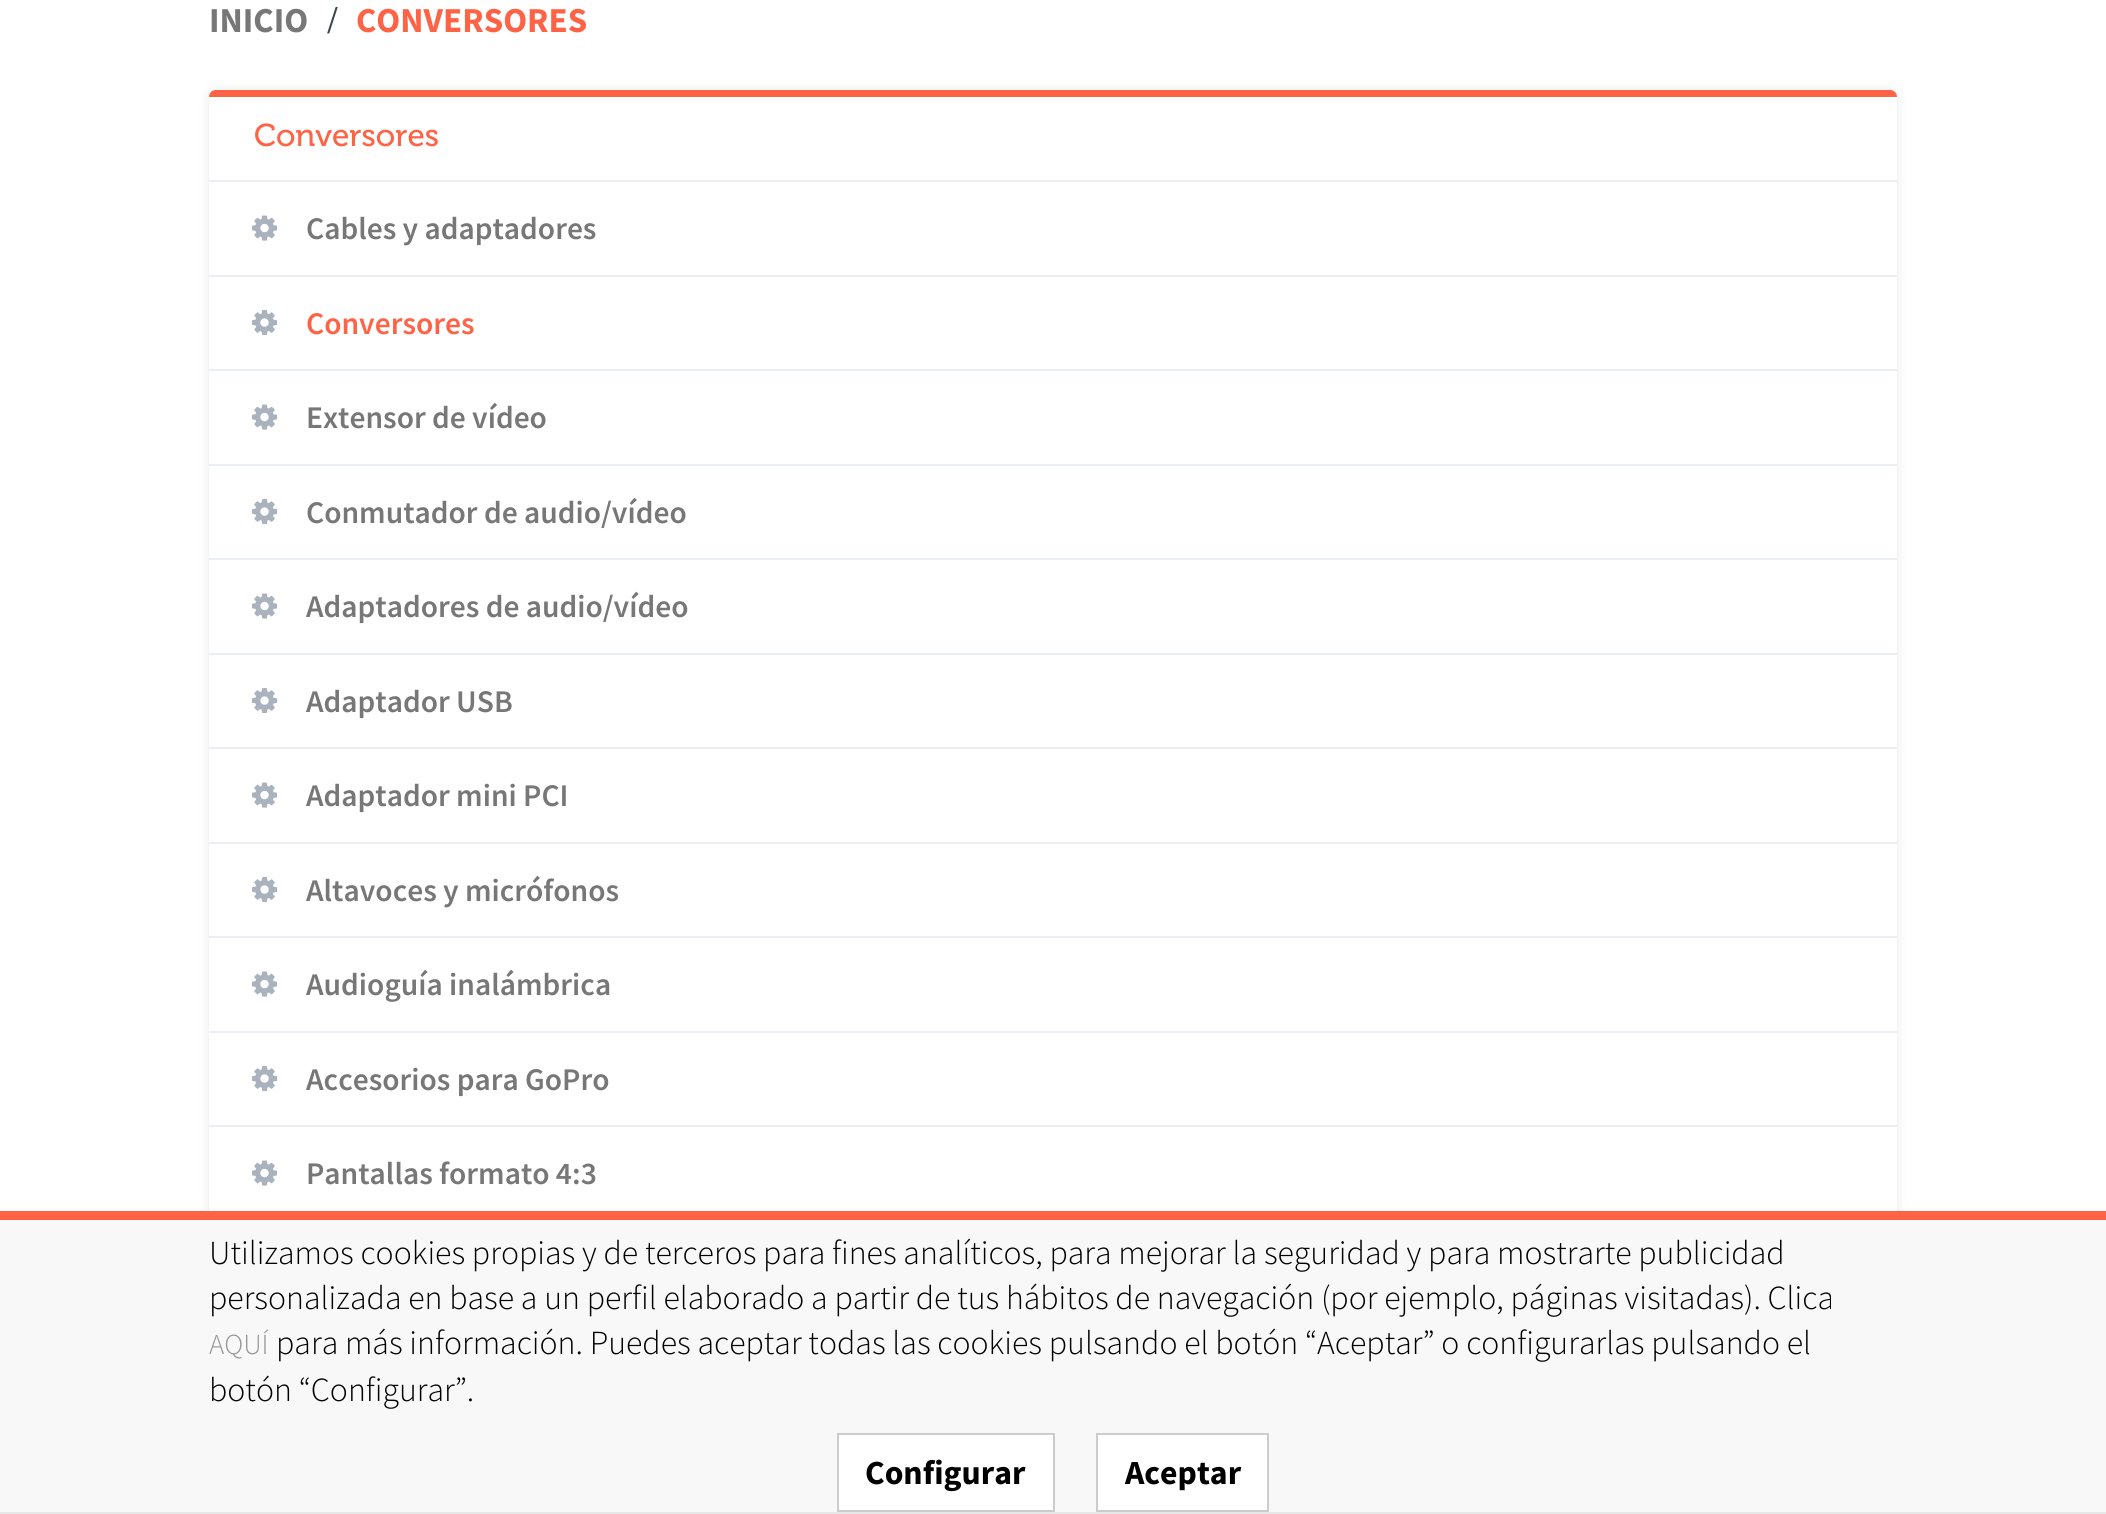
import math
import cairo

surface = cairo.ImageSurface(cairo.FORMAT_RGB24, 2106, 1514)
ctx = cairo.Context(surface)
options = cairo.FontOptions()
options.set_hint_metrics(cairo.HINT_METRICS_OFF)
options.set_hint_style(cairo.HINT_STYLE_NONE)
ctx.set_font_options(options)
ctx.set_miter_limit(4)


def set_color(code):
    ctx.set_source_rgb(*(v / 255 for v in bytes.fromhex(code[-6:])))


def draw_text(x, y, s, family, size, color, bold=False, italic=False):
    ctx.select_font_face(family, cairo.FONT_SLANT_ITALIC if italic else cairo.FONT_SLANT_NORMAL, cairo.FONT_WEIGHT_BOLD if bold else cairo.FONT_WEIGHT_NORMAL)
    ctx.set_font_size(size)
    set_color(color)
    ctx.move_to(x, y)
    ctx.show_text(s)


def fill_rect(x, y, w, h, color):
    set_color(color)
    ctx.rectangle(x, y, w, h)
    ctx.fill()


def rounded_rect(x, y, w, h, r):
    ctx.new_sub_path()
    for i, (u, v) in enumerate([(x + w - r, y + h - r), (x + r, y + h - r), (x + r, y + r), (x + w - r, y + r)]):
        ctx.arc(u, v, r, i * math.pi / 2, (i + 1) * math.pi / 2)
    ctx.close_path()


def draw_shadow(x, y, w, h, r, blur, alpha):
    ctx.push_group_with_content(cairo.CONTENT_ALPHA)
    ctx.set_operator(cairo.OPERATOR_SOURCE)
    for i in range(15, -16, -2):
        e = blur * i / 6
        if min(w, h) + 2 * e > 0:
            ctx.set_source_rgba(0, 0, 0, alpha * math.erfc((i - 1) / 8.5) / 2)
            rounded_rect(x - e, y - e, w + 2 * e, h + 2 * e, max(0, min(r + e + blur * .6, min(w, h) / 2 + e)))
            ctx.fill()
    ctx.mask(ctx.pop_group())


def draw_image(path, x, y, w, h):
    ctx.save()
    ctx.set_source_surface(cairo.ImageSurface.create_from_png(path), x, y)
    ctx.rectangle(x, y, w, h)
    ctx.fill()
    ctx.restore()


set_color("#ffffff")
ctx.paint()
draw_text(209, 32, "INICIO", "Source Sans Pro", 35, "#777777", bold=True)
draw_text(327, 32, "/", "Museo", 33.75, "#3e474b")
draw_text(356, 32, "CONVERSORES", "Source Sans Pro", 35, "#ff6346", bold=True)
set_color("#a5a5a5")
draw_shadow(209, 90, 1688, 1413, 7, 5.5, 0.24)
set_color("#ffffff")
rounded_rect(209, 90, 1688, 1413, 7)
ctx.fill()
set_color("#ff6346")
ctx.new_path()
ctx.move_to(216, 90)
ctx.curve_to(212, 90, 209, 93, 209, 97)
ctx.line_to(1897, 97)
ctx.curve_to(1897, 93, 1894, 90, 1890, 90)
ctx.close_path()
ctx.fill()
fill_rect(209, 180, 1688, 2, "#ebeef2")
draw_text(254, 146, "Conversores", "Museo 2", 31.5, "#ff6346")
fill_rect(209, 275, 1688, 2, "#ebeef2")
draw_image("assets/img1.png", 252, 215, 26, 26)
draw_text(306, 239, "Cables y adaptadores", "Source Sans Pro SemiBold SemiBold", 31.5, "#777777")
fill_rect(209, 369, 1688, 2, "#ebeef2")
draw_image("assets/img2.png", 252, 310, 26, 26)
draw_text(306, 334, "Conversores", "Source Sans Pro SemiBold SemiBold", 31.5, "#ff6346")
fill_rect(209, 464, 1688, 2, "#ebeef2")
draw_image("assets/img1.png", 252, 404, 26, 26)
draw_text(306, 428, "Extensor de vídeo", "Source Sans Pro SemiBold SemiBold", 31.5, "#777777")
fill_rect(209, 558, 1688, 2, "#ebeef2")
draw_image("assets/img2.png", 252, 499, 26, 26)
draw_text(306, 523, "Conmutador de audio/vídeo", "Source Sans Pro SemiBold SemiBold", 31.5, "#777777")
fill_rect(209, 653, 1688, 2, "#ebeef2")
draw_image("assets/img1.png", 252, 593, 26, 26)
draw_text(306, 617, "Adaptadores de audio/vídeo", "Source Sans Pro SemiBold SemiBold", 31.5, "#777777")
fill_rect(209, 747, 1688, 2, "#ebeef2")
draw_image("assets/img2.png", 252, 688, 26, 26)
draw_text(306, 712, "Adaptador USB", "Source Sans Pro SemiBold SemiBold", 31.5, "#777777")
fill_rect(209, 842, 1688, 2, "#ebeef2")
draw_image("assets/img1.png", 252, 782, 26, 26)
draw_text(306, 806, "Adaptador mini PCI", "Source Sans Pro SemiBold SemiBold", 31.5, "#777777")
fill_rect(209, 936, 1688, 2, "#ebeef2")
draw_image("assets/img2.png", 252, 877, 26, 26)
draw_text(306, 901, "Altavoces y micrófonos", "Source Sans Pro SemiBold SemiBold", 31.5, "#777777")
fill_rect(209, 1031, 1688, 2, "#ebeef2")
draw_image("assets/img1.png", 252, 971, 26, 26)
draw_text(306, 995, "Audioguía inalámbrica", "Source Sans Pro SemiBold SemiBold", 31.5, "#777777")
fill_rect(209, 1125, 1688, 2, "#ebeef2")
draw_image("assets/img2.png", 252, 1066, 26, 26)
draw_text(306, 1090, "Accesorios para GoPro", "Source Sans Pro SemiBold SemiBold", 31.5, "#777777")
draw_image("assets/img1.png", 252, 1160, 26, 26)
draw_text(306, 1184, "Pantallas formato 4:3", "Source Sans Pro SemiBold SemiBold", 31.5, "#777777")
fill_rect(0, 1220, 2106, 292, "#f8f8f8")
fill_rect(0, 1512, 2106, 2, "#e7e7e7")
fill_rect(0, 1211, 2106, 9, "#ff6346")
draw_text(209, 1264, "Utilizamos cookies propias y de terceros para fines analíticos, para mejorar la seguridad y para mostrarte publicidad", "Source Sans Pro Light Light", 33.75, "#000000")
draw_text(209, 1309, "personalizada en base a un perfil elaborado a partir de tus hábitos de navegación (por ejemplo, páginas visitadas). Clica", "Source Sans Pro Light Light", 33.75, "#000000")
draw_text(209, 1354, "AQUÍ", "Source Sans Pro Light Light", 29, "#949595")
draw_text(276, 1354, "para más información. Puedes aceptar todas las cookies pulsando el botón “Aceptar” o configurarlas pulsando el", "Source Sans Pro Light Light", 33.75, "#000000")
draw_text(209, 1401, "botón “Configurar”.", "Source Sans Pro Light Light", 33.75, "#000000")
set_color("#ffffff")
ctx.rectangle(838, 1434, 216, 77)
ctx.fill_preserve()
set_color("#cccccc")
ctx.stroke()
draw_text(865, 1484, "Configurar", "Source Sans Pro", 33.75, "#000000", bold=True)
set_color("#ffffff")
ctx.rectangle(1097, 1434, 171, 77)
ctx.fill_preserve()
set_color("#cccccc")
ctx.stroke()
draw_text(1125, 1484, "Aceptar", "Source Sans Pro", 33.75, "#000000", bold=True)
surface.write_to_png("output.png")
